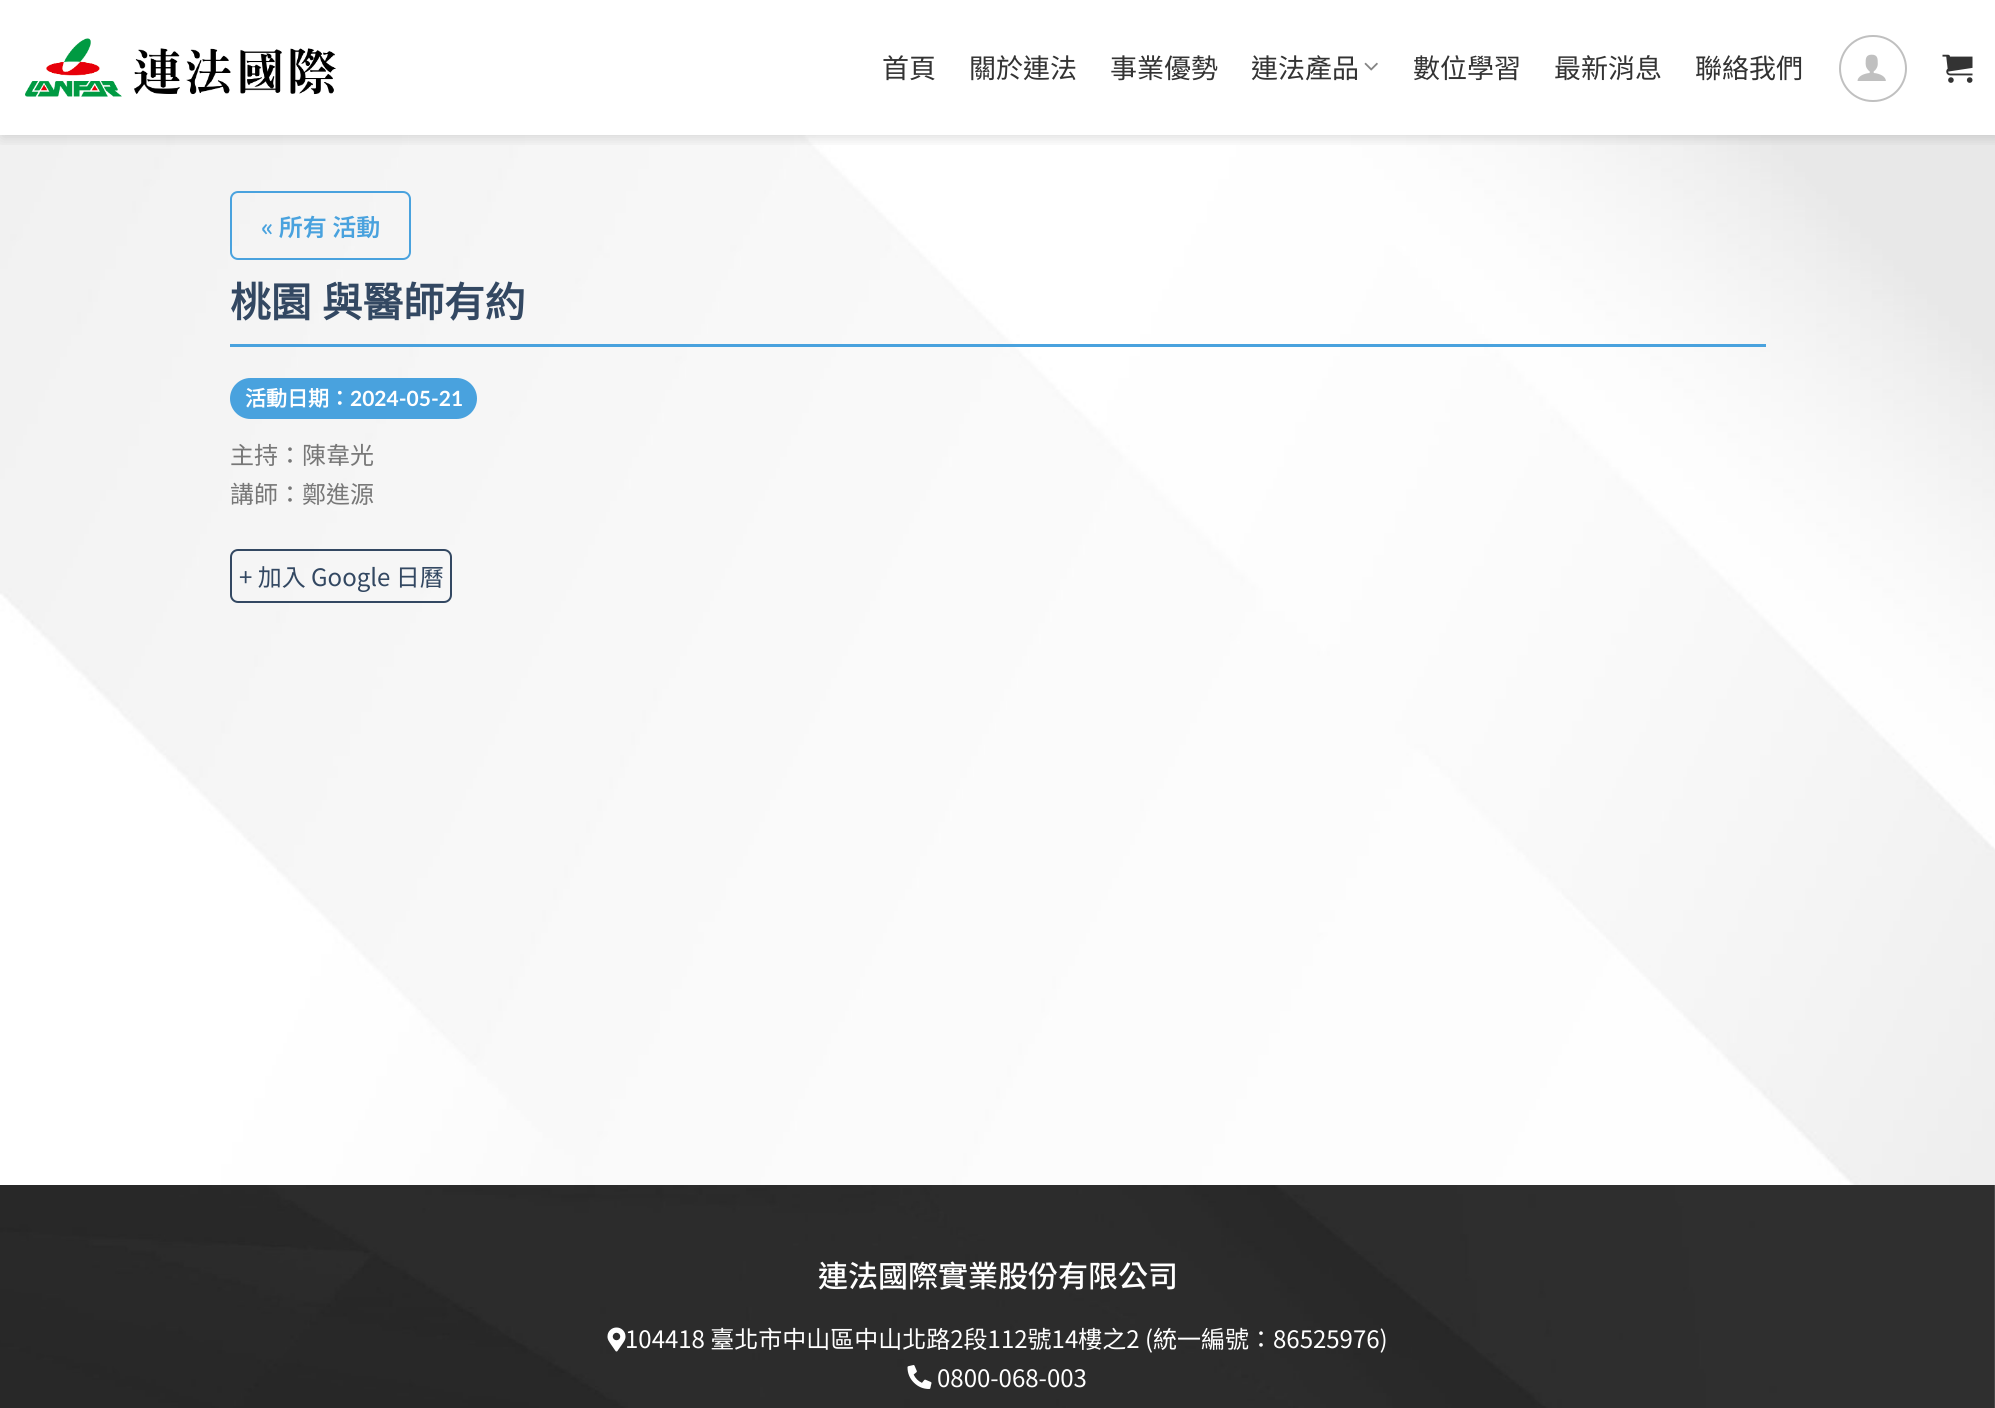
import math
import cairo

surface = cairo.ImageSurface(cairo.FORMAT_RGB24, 1995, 1408)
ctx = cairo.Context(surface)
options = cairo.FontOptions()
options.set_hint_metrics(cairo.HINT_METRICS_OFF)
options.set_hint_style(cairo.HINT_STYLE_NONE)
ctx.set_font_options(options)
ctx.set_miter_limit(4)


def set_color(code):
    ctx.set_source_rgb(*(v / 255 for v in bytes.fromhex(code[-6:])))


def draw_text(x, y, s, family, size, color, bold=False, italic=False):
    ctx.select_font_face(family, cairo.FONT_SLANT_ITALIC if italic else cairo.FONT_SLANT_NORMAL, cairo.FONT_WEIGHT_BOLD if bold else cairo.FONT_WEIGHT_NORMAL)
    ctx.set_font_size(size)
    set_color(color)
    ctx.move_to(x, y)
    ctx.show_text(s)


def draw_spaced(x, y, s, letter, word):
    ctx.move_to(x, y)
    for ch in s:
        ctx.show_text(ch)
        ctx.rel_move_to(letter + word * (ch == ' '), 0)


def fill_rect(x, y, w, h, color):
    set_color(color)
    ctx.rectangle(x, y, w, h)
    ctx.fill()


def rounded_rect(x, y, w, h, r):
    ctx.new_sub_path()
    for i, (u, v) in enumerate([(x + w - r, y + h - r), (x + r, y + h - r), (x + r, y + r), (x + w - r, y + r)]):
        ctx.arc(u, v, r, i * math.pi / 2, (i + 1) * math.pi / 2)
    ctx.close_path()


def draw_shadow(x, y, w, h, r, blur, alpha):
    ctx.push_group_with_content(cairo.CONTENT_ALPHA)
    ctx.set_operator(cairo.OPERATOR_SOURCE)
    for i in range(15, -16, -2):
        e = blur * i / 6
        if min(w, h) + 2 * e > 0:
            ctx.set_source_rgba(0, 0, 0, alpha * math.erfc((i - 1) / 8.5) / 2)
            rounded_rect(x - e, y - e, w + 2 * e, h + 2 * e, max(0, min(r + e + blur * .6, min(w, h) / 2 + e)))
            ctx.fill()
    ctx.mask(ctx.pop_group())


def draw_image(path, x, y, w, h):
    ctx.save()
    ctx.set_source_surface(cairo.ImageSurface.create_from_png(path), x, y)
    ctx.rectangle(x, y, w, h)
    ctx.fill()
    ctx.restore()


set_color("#ffffff")
ctx.paint()
draw_image("assets/img5.png", 0, 135, 1995, 1050)
ctx.save()
ctx.rectangle(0, 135, 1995, 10)
ctx.clip()
set_color("#000000")
draw_shadow(2, 2, 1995, 135, 0, 7.5, 0.15)
ctx.restore()
draw_image("assets/img1.png", 25, 38, 311, 59)
draw_text(882, 78, "首頁", "Noto Sans CJK TC", 27, "#333333")
draw_text(969, 78, "關於連法", "Noto Sans CJK TC", 27, "#333333")
draw_text(1110, 78, "事業優勢", "Noto Sans CJK TC", 27, "#333333")
draw_text(1251, 78, "連法產品", "Noto Sans CJK TC", 27, "#333333")
draw_image("assets/img2.png", 1364, 62, 14, 9)
draw_text(1413, 78, "數位學習", "Noto Sans CJK TC", 27, "#333333")
draw_text(1554, 78, "最新消息", "Noto Sans CJK TC", 27, "#333333")
draw_text(1695, 78, "聯絡我們", "Noto Sans CJK TC", 27, "#333333")
rounded_rect(1840, 36, 66, 65, 32.5)
set_color("#c0c0c0")
ctx.stroke()
draw_image("assets/img3.png", 1857, 54, 29, 27)
draw_image("assets/img4.png", 1942, 54, 31, 29)
rounded_rect(231, 192, 179, 67, 7)
set_color("#49a2de")
ctx.stroke()
draw_text(261, 236, "« 所有 活動", "Noto Sans TC SemiBold", 24, "#49a2de")
fill_rect(230, 344, 1536, 3, "#49a2de")
ctx.select_font_face("Noto Sans CJK TC", cairo.FONT_SLANT_NORMAL, cairo.FONT_WEIGHT_BOLD)
ctx.set_font_size(40.75)
set_color("#334862")
draw_spaced(230, 317, "桃園 與醫師有約", 0, 1)
set_color("#49a2de")
rounded_rect(230, 378, 247, 41, 20.5)
ctx.fill()
draw_text(245, 406, "活動日期：", "Noto Sans CJK TC", 21, "#ffffff", bold=True)
draw_text(350, 406, "2024-05-21", "Lato", 21, "#ffffff", bold=True)
draw_text(230, 464, "主持：陳韋光", "Noto Sans TC", 24, "#777777")
draw_text(230, 503, "講師：鄭進源", "Noto Sans TC", 24, "#777777")
rounded_rect(231, 550, 220, 52, 7)
set_color("#334862")
ctx.stroke()
draw_text(239, 586, "+ 加入 Google 日曆", "Noto Sans TC", 24, "#334862")
draw_image("assets/img6.png", 0, 1185, 1995, 223)
draw_text(818, 1287, "連法國際實業股份有限公司", "Noto Sans TC Medium", 30, "#ffffff")
draw_image("assets/img7.png", 607, 1327, 19, 25)
draw_text(625, 1348, "104418 臺北市中山區中山北路2段112號14樓之2 (統一編號：86525976)", "Noto Sans TC", 24, "#ffffff")
draw_image("assets/img8.png", 907, 1365, 25, 24)
draw_text(937, 1387, "0800-068-003", "Noto Sans TC", 24, "#ffffff")
surface.write_to_png("output.png")
